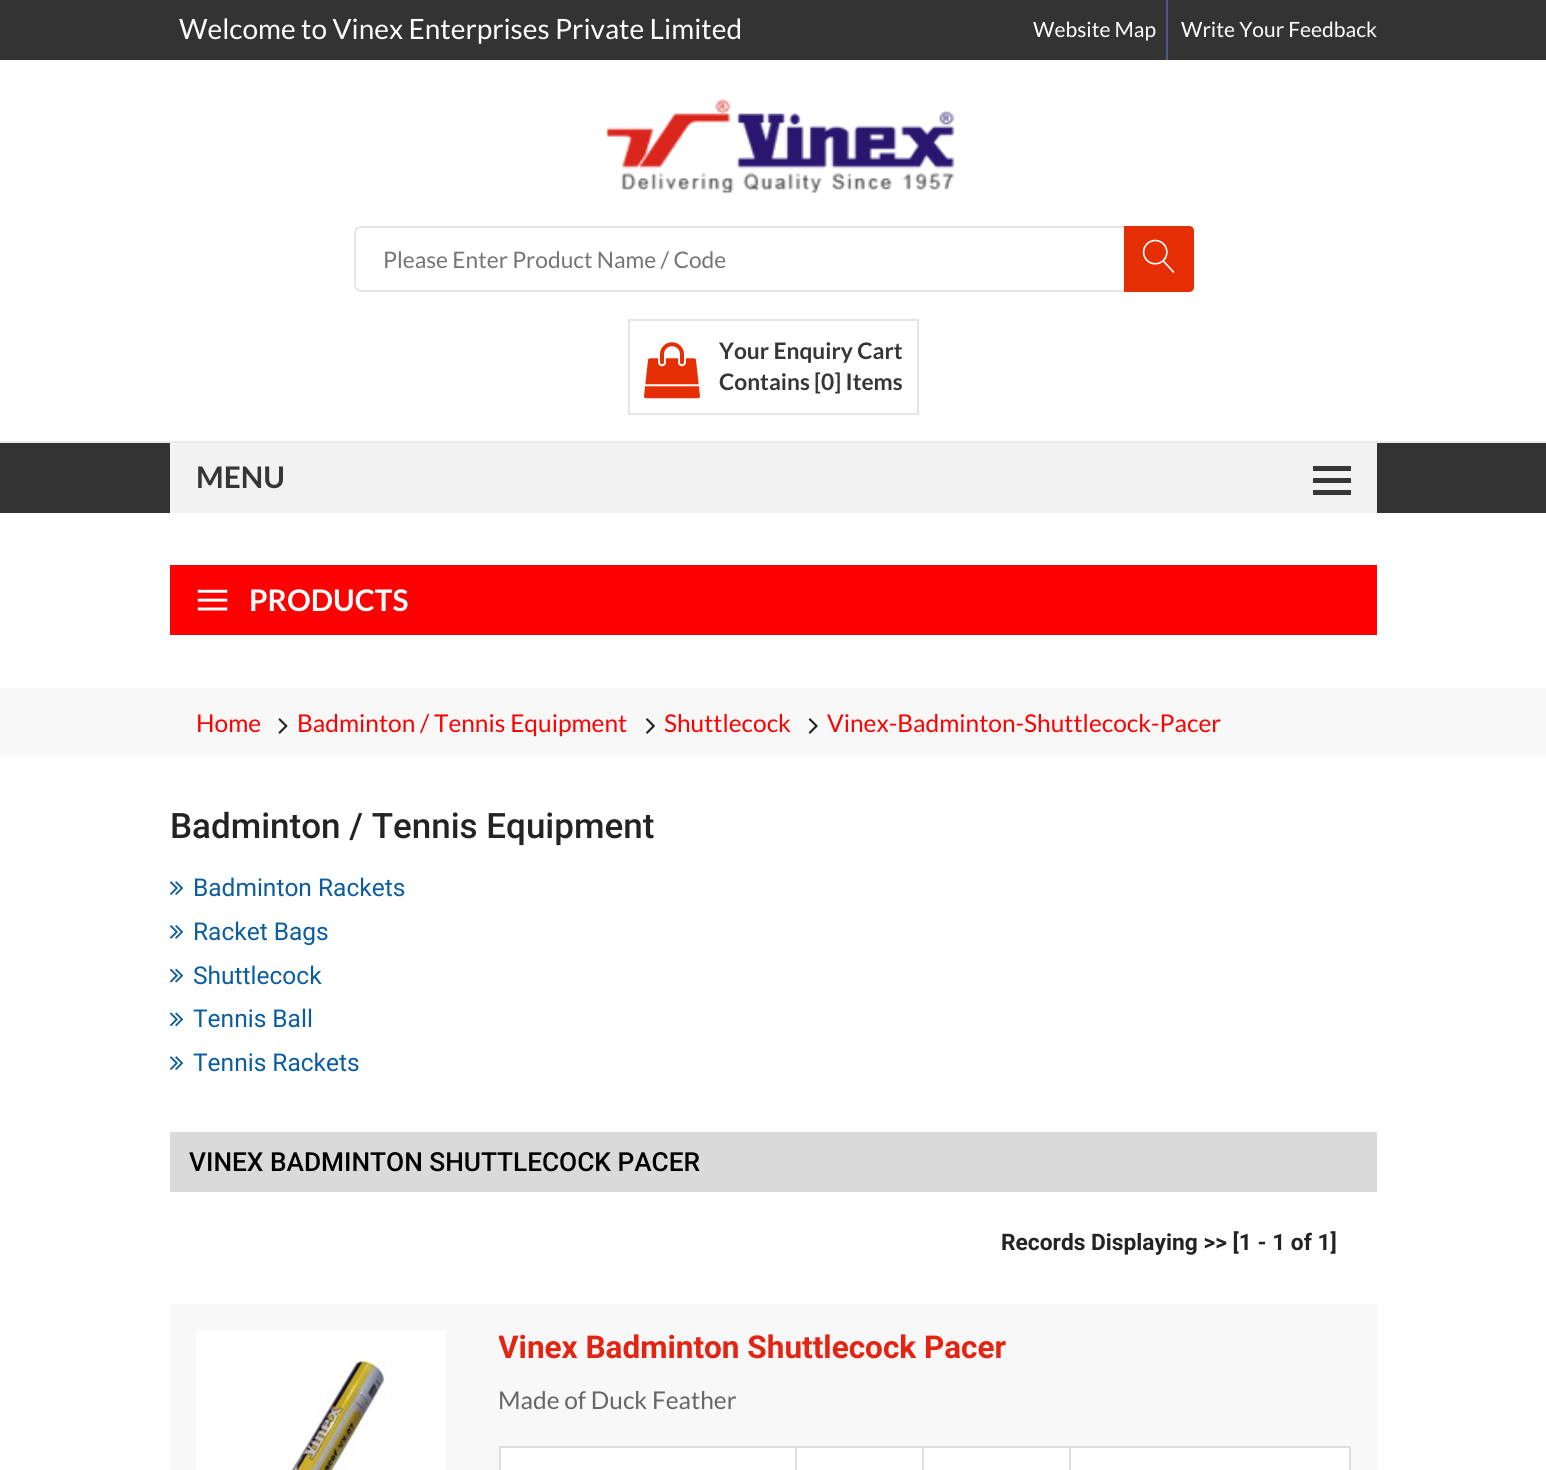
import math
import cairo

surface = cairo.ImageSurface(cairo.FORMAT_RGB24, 1546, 1470)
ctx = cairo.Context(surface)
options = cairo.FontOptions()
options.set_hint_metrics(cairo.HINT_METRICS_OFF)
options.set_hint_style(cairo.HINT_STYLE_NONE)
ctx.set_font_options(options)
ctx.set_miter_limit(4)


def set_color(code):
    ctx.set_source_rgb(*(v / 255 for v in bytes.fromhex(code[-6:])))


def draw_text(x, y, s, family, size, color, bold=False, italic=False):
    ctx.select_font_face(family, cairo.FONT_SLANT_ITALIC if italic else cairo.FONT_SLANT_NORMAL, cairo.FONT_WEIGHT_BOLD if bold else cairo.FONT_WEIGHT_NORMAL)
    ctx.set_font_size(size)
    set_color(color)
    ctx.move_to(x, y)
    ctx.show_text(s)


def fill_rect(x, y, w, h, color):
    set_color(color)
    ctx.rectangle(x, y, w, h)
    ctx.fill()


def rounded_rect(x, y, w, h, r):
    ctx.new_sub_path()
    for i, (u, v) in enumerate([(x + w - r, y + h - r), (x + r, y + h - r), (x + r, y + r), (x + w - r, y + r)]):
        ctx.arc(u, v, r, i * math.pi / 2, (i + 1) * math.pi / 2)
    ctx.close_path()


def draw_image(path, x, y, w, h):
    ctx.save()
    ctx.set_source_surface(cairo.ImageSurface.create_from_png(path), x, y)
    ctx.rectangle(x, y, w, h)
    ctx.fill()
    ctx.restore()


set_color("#ffffff")
ctx.paint()
fill_rect(0, 0, 1546, 60, "#333333")
draw_text(179, 39, "Welcome to Vinex Enterprises Private Limited", "Lato", 28, "#ffffff")
fill_rect(1166, 0, 2, 60, "#525498")
draw_text(1033, 37, "Website Map", "Lato", 21, "#ffffff")
draw_text(1181, 37, "Write Your Feedback", "Lato", 21, "#ffffff")
draw_image("assets/img1.png", 606, 99, 349, 94)
rounded_rect(355, 227, 838, 64, 6)
set_color("#e6e6e6")
ctx.stroke()
draw_text(383, 268, "Please Enter Product Name / Code", "Lato", 22.75, "#757575")
set_color("#e62e04")
ctx.new_path()
ctx.move_to(1124, 226)
ctx.line_to(1189, 226)
ctx.curve_to(1192, 226, 1194, 228, 1194, 231)
ctx.line_to(1194, 287)
ctx.curve_to(1194, 290, 1192, 292, 1189, 292)
ctx.line_to(1124, 292)
ctx.close_path()
ctx.fill()
draw_image("assets/img2.png", 1142, 239, 33, 34)
ctx.rectangle(629, 320, 289, 94)
set_color("#e5e5e5")
ctx.stroke()
draw_image("assets/img3.png", 644, 342, 56, 57)
draw_text(719, 359, "Your Enquiry Cart", "Lato", 22.75, "#363636", bold=True)
draw_text(719, 390, "Contains [0] Items", "Lato", 22.75, "#363636", bold=True)
fill_rect(0, 443, 1546, 70, "#333333")
fill_rect(0, 441, 1546, 2, "#ebebeb")
fill_rect(170, 443, 1207, 70, "#f2f2f2")
fill_rect(1313, 466, 38, 5, "#363636")
fill_rect(1313, 478, 38, 5, "#363636")
fill_rect(1313, 490, 38, 5, "#363636")
draw_text(196, 488, "MENU", "Lato", 29.75, "#363636", bold=True)
fill_rect(170, 565, 1207, 70, "#ff0000")
draw_image("assets/img4.png", 197, 589, 31, 22)
draw_text(249, 611, "PRODUCTS", "Lato", 29.75, "#ffffff", bold=True)
fill_rect(0, 688, 1546, 68, "#f8f8f8")
draw_text(196, 732, "Home", "Lato", 24.5, "#ff0000")
draw_image("assets/img5.png", 278, 718, 10, 16)
draw_text(297, 732, "Badminton / Tennis Equipment", "Lato", 24.5, "#ff0000")
draw_image("assets/img6.png", 646, 718, 9, 16)
draw_text(664, 732, "Shuttlecock", "Lato", 24.5, "#ff0000")
draw_image("assets/img7.png", 808, 718, 10, 16)
draw_text(827, 732, "Vinex-Badminton-Shuttlecock-Pacer", "Lato", 24.5, "#ff0000")
draw_text(170, 838, "Badminton / Tennis Equipment", "Roboto Medium", 35, "#232323")
draw_image("assets/img8.png", 170, 881, 14, 14)
draw_text(193, 896, "Badminton Rackets", "Roboto", 24.5, "#0c5da0")
draw_image("assets/img9.png", 170, 925, 14, 14)
draw_text(193, 940, "Racket Bags", "Roboto", 24.5, "#0c5da0")
draw_image("assets/img10.png", 170, 968, 14, 15)
draw_text(193, 984, "Shuttlecock", "Roboto", 24.5, "#0c5da0")
draw_image("assets/img11.png", 170, 1012, 14, 15)
draw_text(193, 1027, "Tennis Ball", "Roboto", 24.5, "#0c5da0")
draw_image("assets/img8.png", 170, 1056, 14, 14)
draw_text(193, 1071, "Tennis Rackets", "Roboto", 24.5, "#0c5da0")
fill_rect(170, 1132, 1207, 60, "#dadada")
draw_text(189, 1171, "VINEX BADMINTON SHUTTLECOCK PACER", "Roboto Medium", 26.25, "#000000")
draw_text(1001, 1250, "Records Displaying >> [1 - 1 of 1]", "Roboto", 22.75, "#232323", bold=True)
fill_rect(170, 1304, 1207, 166, "#f8f8f8")
draw_image("assets/img12.png", 196, 1330, 250, 140)
ctx.save()
ctx.rectangle(499, 1330, 852, 35)
ctx.clip()
draw_text(498, 1358, "Vinex Badminton Shuttlecock Pacer", "Roboto", 31.5, "#e32412", bold=True)
ctx.restore()
draw_text(498, 1409, "Made of Duck Feather", "Lato", 24.5, "#666666")
fill_rect(501, 1448, 294, 22, "#ffffff")
fill_rect(1069, 1446, 282, 2, "#dedede")
fill_rect(1069, 1446, 2, 24, "#dedede")
fill_rect(922, 1446, 149, 2, "#dedede")
fill_rect(922, 1446, 2, 24, "#dedede")
fill_rect(795, 1446, 129, 2, "#dedede")
fill_rect(795, 1446, 2, 24, "#dedede")
fill_rect(499, 1446, 297, 2, "#dedede")
fill_rect(499, 1446, 2, 24, "#dedede")
fill_rect(797, 1448, 125, 22, "#ffffff")
fill_rect(924, 1448, 145, 22, "#ffffff")
fill_rect(1071, 1448, 278, 22, "#ffffff")
fill_rect(1349, 1446, 2, 24, "#dedede")
surface.write_to_png("output.png")
